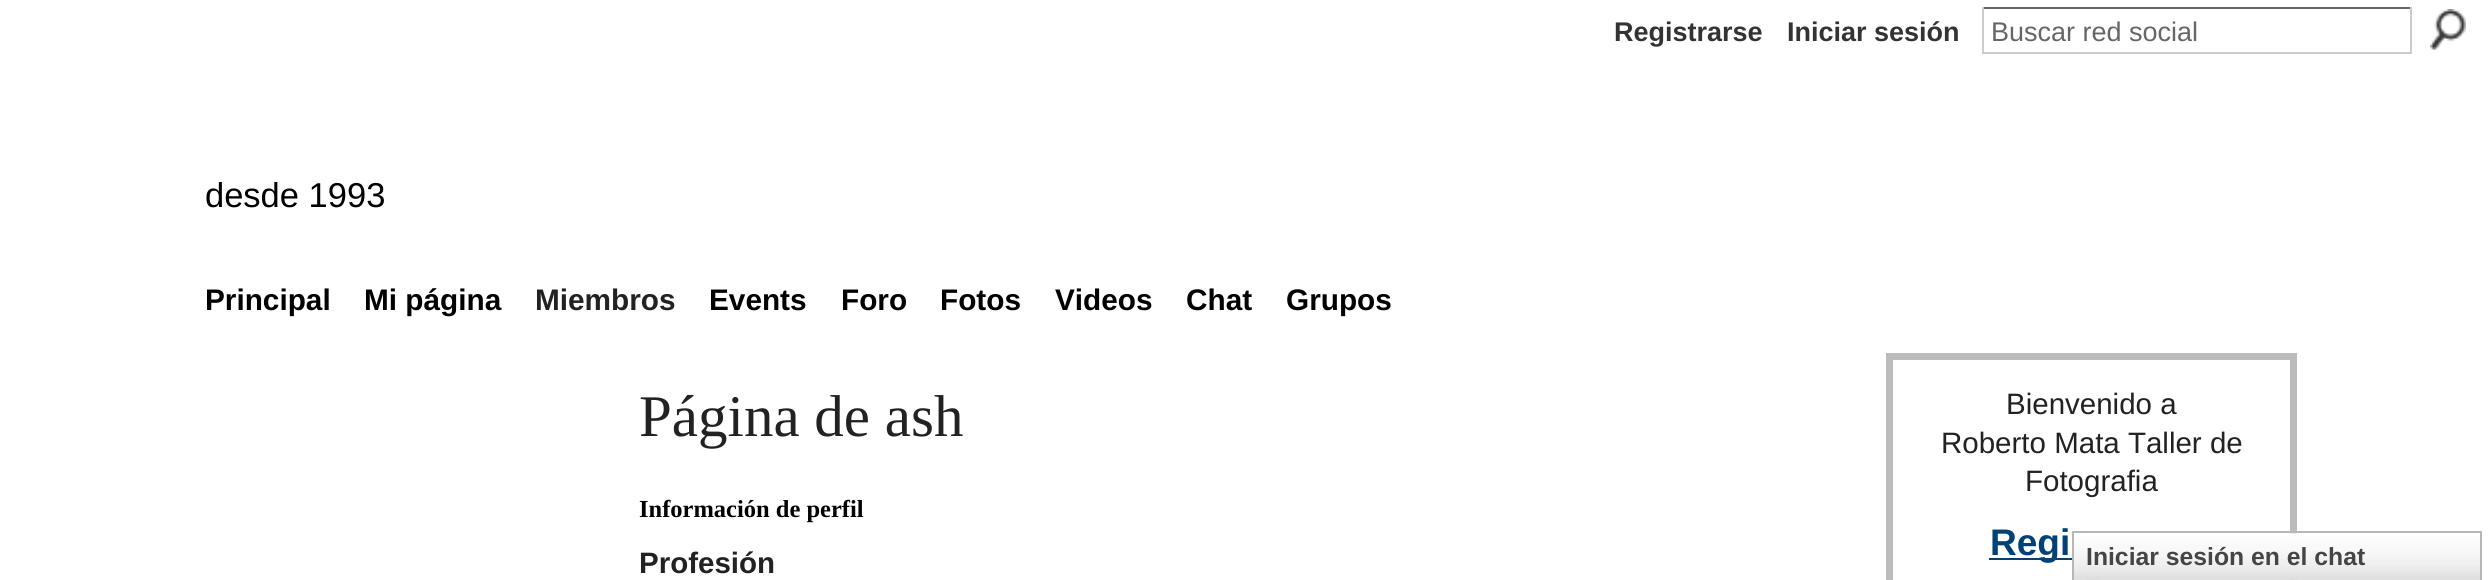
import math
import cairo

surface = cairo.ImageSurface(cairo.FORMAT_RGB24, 2490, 580)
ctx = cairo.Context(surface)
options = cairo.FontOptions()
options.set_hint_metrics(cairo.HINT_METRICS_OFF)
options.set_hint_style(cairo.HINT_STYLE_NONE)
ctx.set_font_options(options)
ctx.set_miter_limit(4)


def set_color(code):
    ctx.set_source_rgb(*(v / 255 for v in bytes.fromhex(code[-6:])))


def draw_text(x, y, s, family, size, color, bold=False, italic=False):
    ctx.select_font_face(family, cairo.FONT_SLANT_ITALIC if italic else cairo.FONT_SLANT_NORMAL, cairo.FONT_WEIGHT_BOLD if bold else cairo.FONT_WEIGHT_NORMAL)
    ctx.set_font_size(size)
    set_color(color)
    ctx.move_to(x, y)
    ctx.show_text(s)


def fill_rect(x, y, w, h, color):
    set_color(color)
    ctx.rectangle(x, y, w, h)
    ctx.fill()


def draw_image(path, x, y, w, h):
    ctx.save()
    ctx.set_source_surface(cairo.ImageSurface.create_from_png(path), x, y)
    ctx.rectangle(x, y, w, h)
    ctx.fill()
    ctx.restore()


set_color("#ffffff")
ctx.paint()
draw_text(1614, 41, "Registrarse", "Liberation Sans", 27, "#333333", bold=True)
draw_text(1787, 41, "Iniciar sesión", "Liberation Sans", 27, "#333333", bold=True)
fill_rect(1982, 7, 430, 2, "#666666")
fill_rect(2410, 7, 2, 47, "#cccccc")
fill_rect(1982, 52, 430, 2, "#cccccc")
fill_rect(1982, 7, 2, 47, "#cccccc")
draw_text(1991, 41, "Buscar red social", "Liberation Sans", 27, "#666666")
draw_image("assets/img1.png", 2430, 9, 36, 41)
draw_text(205, 207, "desde 1993", "Liberation Sans", 34.5, "#000000")
draw_text(205, 310, "Principal", "Liberation Sans", 29.75, "#000000", bold=True)
draw_text(364, 310, "Mi página", "Liberation Sans", 29.75, "#000000", bold=True)
draw_text(535, 310, "Miembros", "Liberation Sans", 29.75, "#222222", bold=True)
draw_text(709, 310, "Events", "Liberation Sans", 29.75, "#000000", bold=True)
draw_text(841, 310, "Foro", "Liberation Sans", 29.75, "#000000", bold=True)
draw_text(940, 310, "Fotos", "Liberation Sans", 29.75, "#000000", bold=True)
draw_text(1055, 310, "Videos", "Liberation Sans", 29.75, "#000000", bold=True)
draw_text(1186, 310, "Chat", "Liberation Sans", 29.75, "#000000", bold=True)
draw_text(1286, 310, "Grupos", "Liberation Sans", 29.75, "#000000", bold=True)
draw_text(639, 436, "Página de ash", "Liberation Serif", 59, "#222222")
draw_text(639, 517, "Información de perfil", "Liberation Serif", 24.5, "#000000", bold=True)
draw_text(639, 573, "Profesión", "Liberation Sans", 29.5, "#222222", bold=True)
ctx.rectangle(1889.5, 356.5, 404, 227)
set_color("#bbbbbb")
ctx.set_line_width(7)
ctx.stroke()
draw_text(2006, 414, "Bienvenido a", "Liberation Sans", 29.5, "#222222")
draw_text(1941, 453, "Roberto Mata Taller de", "Liberation Sans", 29.5, "#222222")
draw_text(2025, 491, "Fotografia", "Liberation Sans", 29.5, "#222222")
fill_rect(1989, 558, 83, 2, "#004276")
draw_text(1990, 555, "Regi", "Liberation Sans", 37, "#004276", bold=True)
draw_image("assets/img2.png", 2074, 533, 406, 47)
ctx.rectangle(2073, 532, 408, 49)
set_color("#b7b7b7")
ctx.set_line_width(2)
ctx.stroke()
draw_image("assets/img3.png", 2086, 533, 13, 47)
draw_text(2086, 565, "Iniciar sesión en el chat", "Liberation Sans", 24.75, "#454545", bold=True)
surface.write_to_png("output.png")
